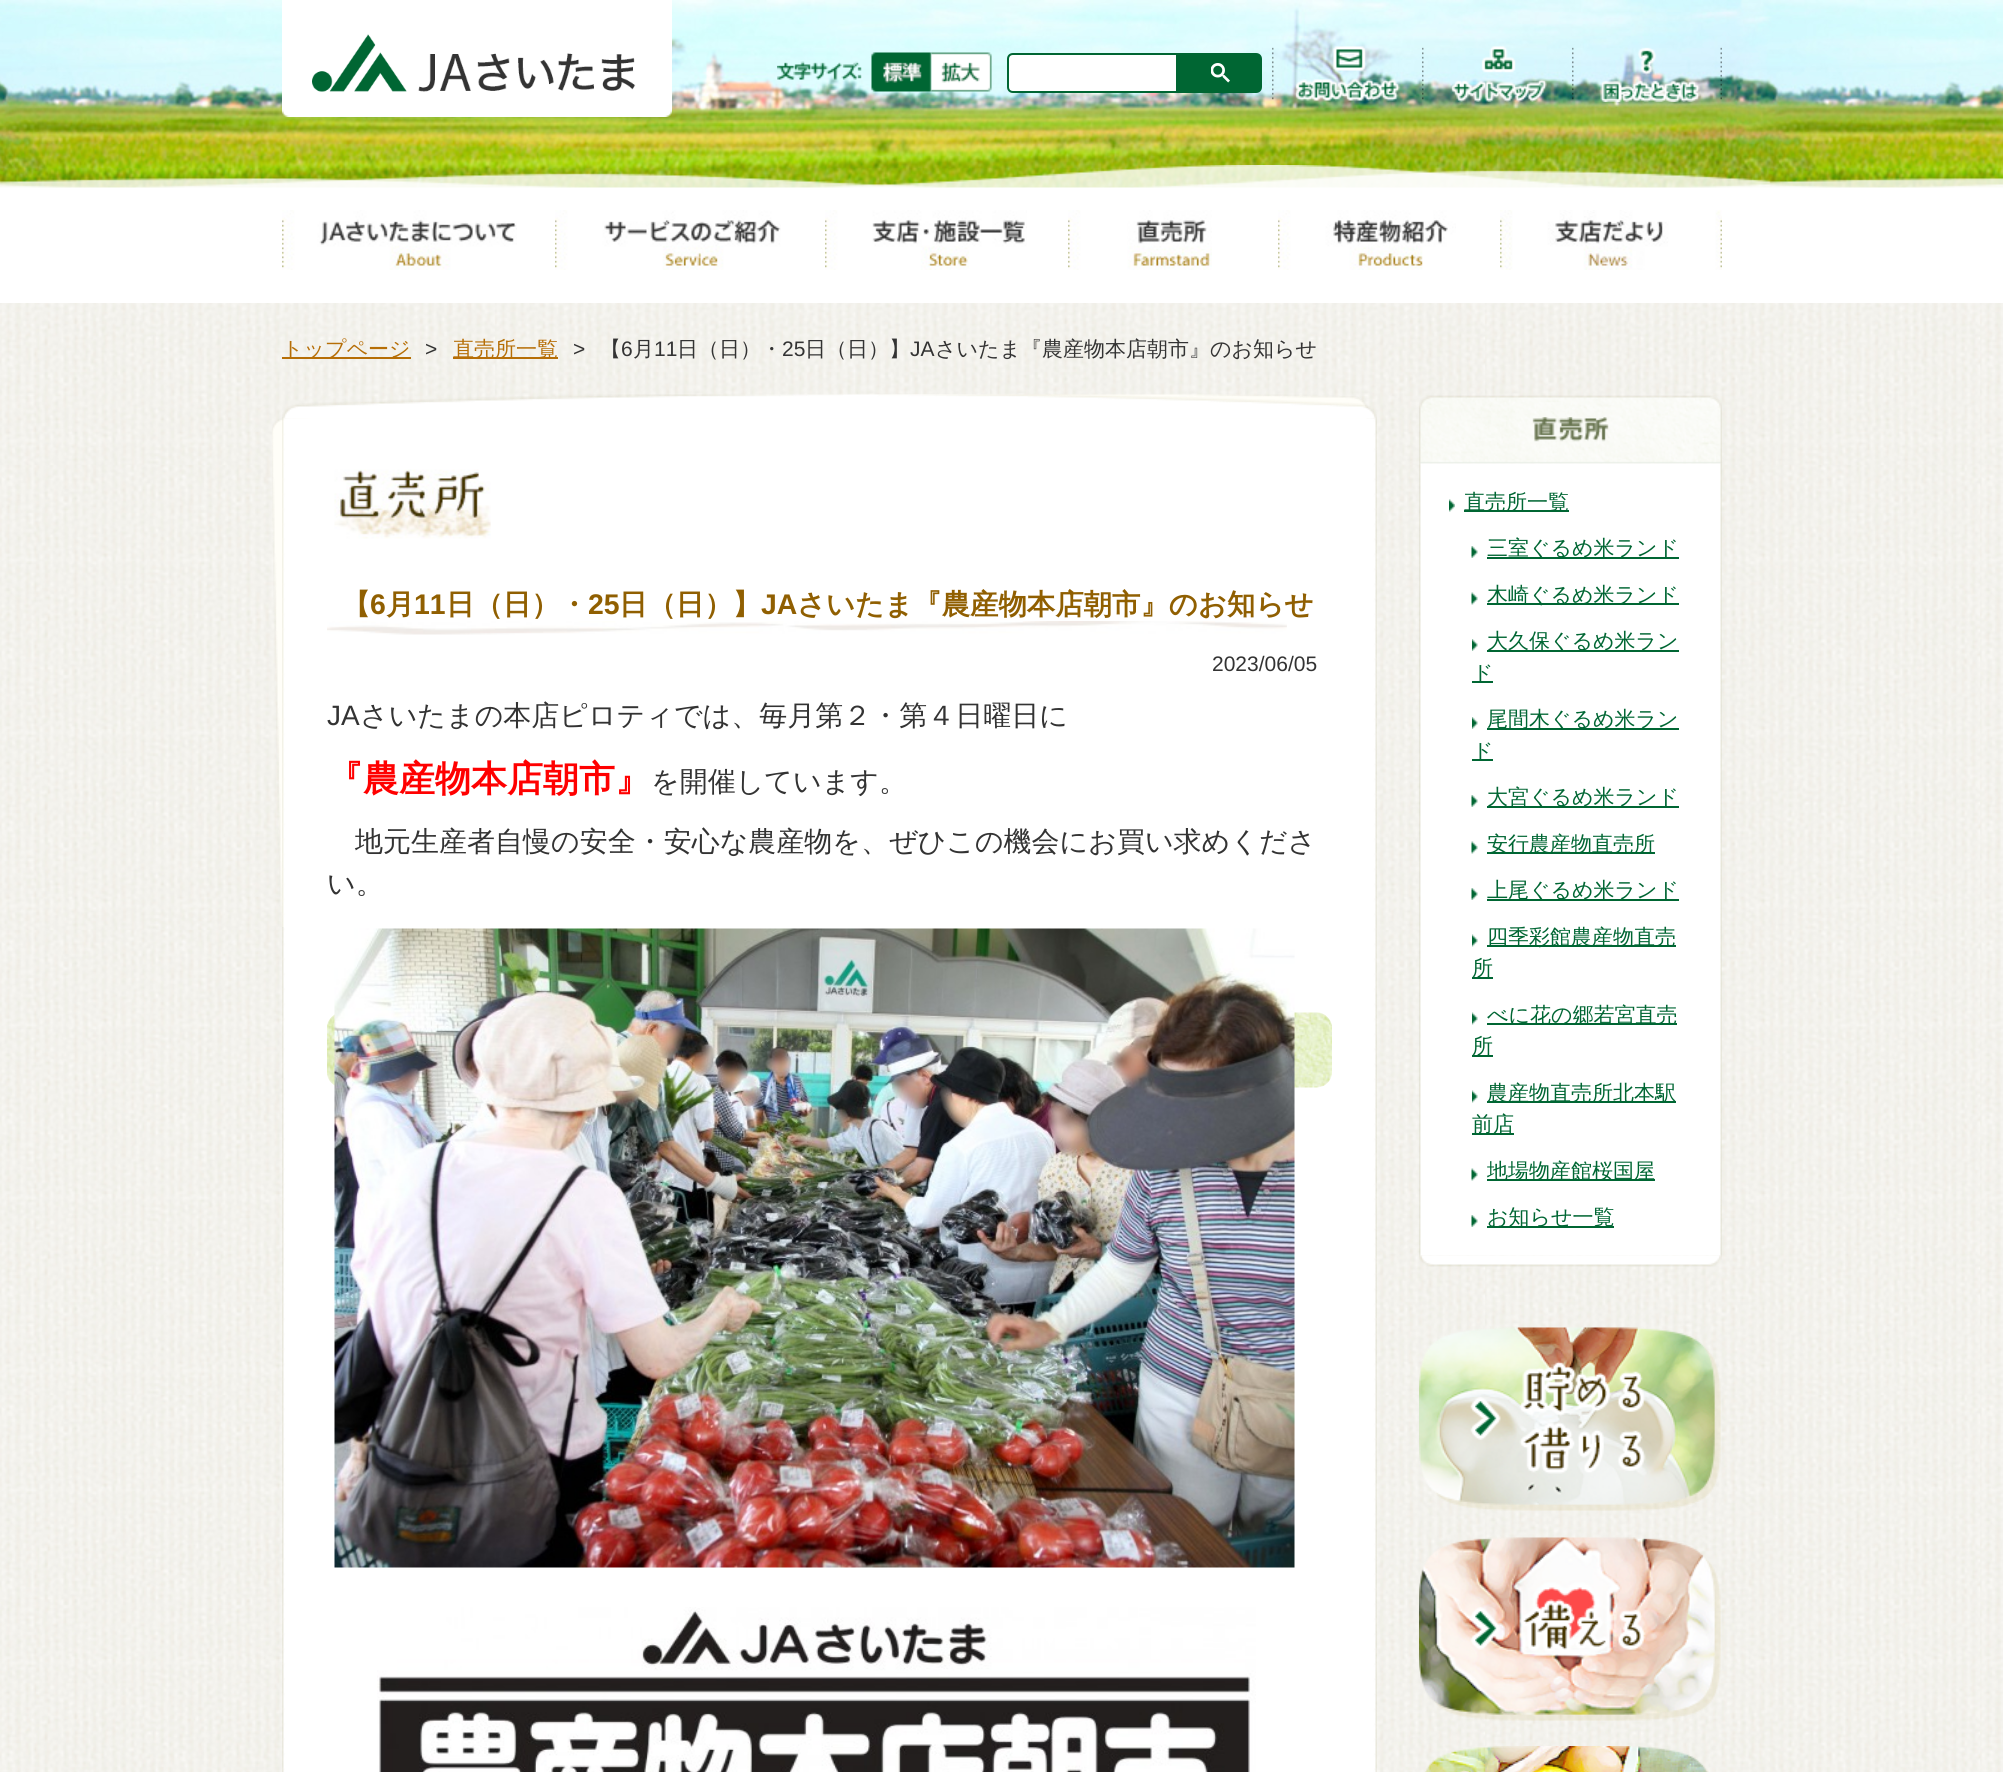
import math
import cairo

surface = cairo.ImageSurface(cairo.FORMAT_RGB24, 2003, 1772)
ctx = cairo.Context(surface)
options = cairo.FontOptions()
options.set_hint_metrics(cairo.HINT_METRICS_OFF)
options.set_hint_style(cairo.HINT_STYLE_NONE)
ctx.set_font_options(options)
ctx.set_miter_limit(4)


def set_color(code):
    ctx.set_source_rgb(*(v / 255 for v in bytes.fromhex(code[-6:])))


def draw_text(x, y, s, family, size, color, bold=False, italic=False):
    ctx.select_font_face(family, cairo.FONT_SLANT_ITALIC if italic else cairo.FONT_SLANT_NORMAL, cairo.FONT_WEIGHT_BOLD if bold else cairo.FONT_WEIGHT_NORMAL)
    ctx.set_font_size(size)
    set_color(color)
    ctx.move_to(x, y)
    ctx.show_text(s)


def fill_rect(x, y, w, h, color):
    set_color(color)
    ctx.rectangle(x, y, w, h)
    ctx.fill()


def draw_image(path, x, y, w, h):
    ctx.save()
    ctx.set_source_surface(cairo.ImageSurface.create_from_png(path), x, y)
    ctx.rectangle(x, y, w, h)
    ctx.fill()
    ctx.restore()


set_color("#ffffff")
ctx.paint()
draw_image("assets/img1.png", 0, 303, 2003, 1469)
draw_image("assets/img2.png", 0, 0, 2003, 188)
draw_image("assets/img3.png", 282, 0, 390, 117)
draw_image("assets/img4.png", 312, 34, 324, 58)
draw_image("assets/img5.png", 777, 61, 85, 19)
draw_image("assets/img6.png", 871, 52, 61, 40)
draw_image("assets/img7.png", 931, 52, 61, 40)
set_color("#ffffff")
ctx.new_path()
ctx.move_to(1013, 54)
ctx.line_to(1177, 54)
ctx.line_to(1177, 92)
ctx.line_to(1013, 92)
ctx.curve_to(1010, 92, 1008, 90, 1008, 87)
ctx.line_to(1008, 59)
ctx.curve_to(1008, 56, 1010, 54, 1013, 54)
ctx.close_path()
ctx.fill_preserve()
set_color("#006633")
ctx.stroke()
ctx.new_path()
ctx.move_to(1178, 53)
ctx.line_to(1256, 53)
ctx.curve_to(1259.5, 53, 1262, 55.5, 1262, 59)
ctx.line_to(1262, 87)
ctx.curve_to(1262, 90.5, 1259.5, 93, 1256, 93)
ctx.line_to(1178, 93)
ctx.close_path()
ctx.fill()
draw_image("assets/img8.png", 1211, 63, 19, 20)
draw_image("assets/img9.png", 1272, 46, 128, 55)
draw_image("assets/img10.png", 1422, 46, 125, 56)
draw_image("assets/img11.png", 1572, 47, 150, 55)
draw_image("assets/img12.png", 0, 165, 2003, 138)
draw_image("assets/img13.png", 282, 210, 235, 60)
draw_image("assets/img14.png", 780, 218, 1, 52)
draw_image("assets/img15.png", 555, 210, 225, 60)
draw_image("assets/img16.png", 825, 210, 202, 60)
draw_image("assets/img17.png", 1068, 210, 144, 60)
draw_image("assets/img18.png", 1128, 220, 84, 50)
draw_image("assets/img19.png", 1278, 210, 174, 60)
draw_image("assets/img20.png", 1333, 220, 123, 50)
draw_image("assets/img21.png", 1500, 210, 222, 60)
draw_image("assets/img22.png", 1550, 212, 118, 58)
fill_rect(282, 357, 129, 2, "#b66e06")
draw_text(282, 356, "トップページ", "WenQuanYi Zen Hei Medium", 21, "#b66e06")
draw_text(425, 356, ">", "Liberation Sans", 21, "#333333")
fill_rect(453, 357, 105, 2, "#b66e06")
draw_text(453, 356, "直売所一覧", "WenQuanYi Zen Hei Medium", 21, "#b66e06")
draw_text(573, 356, ">", "Liberation Sans", 21, "#333333")
draw_text(600, 356, "【", "WenQuanYi Zen Hei Medium", 21, "#333333")
draw_text(621, 356, "6", "Liberation Sans", 21, "#333333")
draw_text(633, 356, "月", "WenQuanYi Zen Hei Medium", 21, "#333333")
draw_text(654, 356, "11", "Liberation Sans", 21, "#333333")
draw_text(677, 356, "日（日）・", "WenQuanYi Zen Hei Medium", 21, "#333333")
draw_text(782, 356, "25", "Liberation Sans", 21, "#333333")
draw_text(805, 356, "日（日）】", "WenQuanYi Zen Hei Medium", 21, "#333333")
draw_text(910, 356, "JA", "Liberation Sans", 21, "#333333")
draw_text(935, 356, "さいたま『農産物本店朝市』のお知らせ", "WenQuanYi Zen Hei Medium", 21, "#333333")
draw_image("assets/img23.png", 272, 394, 1097, 533)
draw_image("assets/img24.png", 282, 394, 1095, 25)
draw_image("assets/img25.png", 282, 418, 1095, 1354)
draw_image("assets/img26.png", 334, 469, 157, 70)
draw_image("assets/img27.png", 327, 621, 960, 14)
draw_text(342, 614, "【", "WenQuanYi Zen Hei", 28.4, "#905f01", bold=True)
draw_text(370, 614, "6", "Liberation Sans", 28.4, "#905f01", bold=True)
draw_text(386, 614, "月", "WenQuanYi Zen Hei", 28.4, "#905f01", bold=True)
draw_text(414, 614, "11", "Liberation Sans", 28.4, "#905f01", bold=True)
draw_text(446, 614, "日（日）・", "WenQuanYi Zen Hei", 28.4, "#905f01", bold=True)
draw_text(588, 614, "25", "Liberation Sans", 28.4, "#905f01", bold=True)
draw_text(619, 614, "日（日）】", "WenQuanYi Zen Hei", 28.4, "#905f01", bold=True)
draw_text(761, 614, "JA", "Liberation Sans", 28.4, "#905f01", bold=True)
draw_text(797, 614, "さいたま『農産物本店朝市』のお知らせ", "WenQuanYi Zen Hei", 28.4, "#905f01", bold=True)
draw_text(1212, 671, "2023/06/05", "Liberation Sans", 21, "#333333")
draw_text(327, 725, "JA", "Liberation Sans", 28, "#333333")
draw_text(360, 725, "さいたまの本店ピロティでは、毎月第２・第４日曜日に", "WenQuanYi Zen Hei Medium", 28, "#333333")
draw_text(327, 791, "『農産物本店朝市』", "WenQuanYi Zen Hei", 36, "#ff0000", bold=True)
draw_text(651, 791, "を開催しています。", "WenQuanYi Zen Hei Medium", 28, "#333333")
draw_text(355, 851, "地元生産者自慢の安全・安心な農産物を、ぜひこの機会にお買い求めくださ", "WenQuanYi Zen Hei Medium", 28, "#333333")
draw_text(327, 893, "い。", "WenQuanYi Zen Hei Medium", 28, "#333333")
draw_image("assets/img29.png", 327, 1012, 1005, 76)
draw_image("assets/img28.png", 334, 928, 961, 640)
draw_image("assets/img30.png", 377, 1607, 879, 165)
draw_image("assets/img31.png", 1419, 395, 303, 69)
draw_image("assets/img32.png", 1532, 417, 77, 25)
draw_image("assets/img33.png", 1419, 463, 303, 793)
draw_image("assets/img34.png", 1449, 499, 6, 13)
fill_rect(1464, 510, 105, 2, "#006633")
draw_text(1464, 509, "直売所一覧", "WenQuanYi Zen Hei Medium", 21, "#006633")
draw_image("assets/img35.png", 1471, 546, 7, 12)
fill_rect(1487, 557, 192, 2, "#006633")
draw_text(1487, 555, "三室ぐるめ米ランド", "WenQuanYi Zen Hei Medium", 21, "#006633")
draw_image("assets/img36.png", 1471, 592, 7, 13)
fill_rect(1487, 603, 192, 2, "#006633")
draw_text(1487, 602, "木崎ぐるめ米ランド", "WenQuanYi Zen Hei Medium", 21, "#006633")
draw_image("assets/img37.png", 1472, 639, 6, 12)
fill_rect(1487, 650, 192, 2, "#006633")
draw_text(1487, 648, "大久保ぐるめ米ラン", "WenQuanYi Zen Hei Medium", 21, "#006633")
fill_rect(1472, 681, 21, 2, "#006633")
draw_text(1472, 680, "ド", "WenQuanYi Zen Hei Medium", 21, "#006633")
draw_image("assets/img37.png", 1472, 717, 6, 12)
fill_rect(1487, 728, 192, 2, "#006633")
draw_text(1487, 726, "尾間木ぐるめ米ラン", "WenQuanYi Zen Hei Medium", 21, "#006633")
fill_rect(1472, 759, 21, 2, "#006633")
draw_text(1472, 758, "ド", "WenQuanYi Zen Hei Medium", 21, "#006633")
draw_image("assets/img35.png", 1471, 795, 7, 12)
fill_rect(1487, 806, 192, 2, "#006633")
draw_text(1487, 804, "大宮ぐるめ米ランド", "WenQuanYi Zen Hei Medium", 21, "#006633")
draw_image("assets/img36.png", 1471, 841, 7, 13)
fill_rect(1487, 852, 168, 2, "#006633")
draw_text(1487, 851, "安行農産物直売所", "WenQuanYi Zen Hei Medium", 21, "#006633")
draw_image("assets/img35.png", 1471, 888, 7, 12)
fill_rect(1487, 899, 192, 2, "#006633")
draw_text(1487, 897, "上尾ぐるめ米ランド", "WenQuanYi Zen Hei Medium", 21, "#006633")
draw_image("assets/img38.png", 1472, 934, 6, 13)
fill_rect(1487, 945, 189, 2, "#006633")
draw_text(1487, 944, "四季彩館農産物直売", "WenQuanYi Zen Hei Medium", 21, "#006633")
fill_rect(1472, 977, 21, 2, "#006633")
draw_text(1472, 975, "所", "WenQuanYi Zen Hei Medium", 21, "#006633")
draw_image("assets/img38.png", 1472, 1012, 6, 13)
fill_rect(1487, 1023, 190, 2, "#006633")
draw_text(1487, 1022, "べに花の郷若宮直売", "WenQuanYi Zen Hei Medium", 21, "#006633")
fill_rect(1472, 1055, 21, 2, "#006633")
draw_text(1472, 1053, "所", "WenQuanYi Zen Hei Medium", 21, "#006633")
draw_image("assets/img38.png", 1472, 1090, 6, 13)
fill_rect(1487, 1101, 189, 2, "#006633")
draw_text(1487, 1100, "農産物直売所北本駅", "WenQuanYi Zen Hei Medium", 21, "#006633")
fill_rect(1472, 1133, 42, 2, "#006633")
draw_text(1472, 1131, "前店", "WenQuanYi Zen Hei Medium", 21, "#006633")
draw_image("assets/img36.png", 1471, 1168, 7, 13)
fill_rect(1487, 1179, 168, 2, "#006633")
draw_text(1487, 1178, "地場物産館桜国屋", "WenQuanYi Zen Hei Medium", 21, "#006633")
draw_image("assets/img35.png", 1471, 1215, 7, 12)
fill_rect(1487, 1226, 127, 2, "#006633")
draw_text(1487, 1224, "お知らせ一覧", "WenQuanYi Zen Hei Medium", 21, "#006633")
draw_image("assets/img39.png", 1419, 1255, 303, 12)
draw_image("assets/img40.png", 1419, 1327, 302, 184)
draw_image("assets/img41.png", 1419, 1537, 302, 184)
draw_image("assets/img42.png", 1424, 1746, 285, 26)
surface.write_to_png("output.png")
